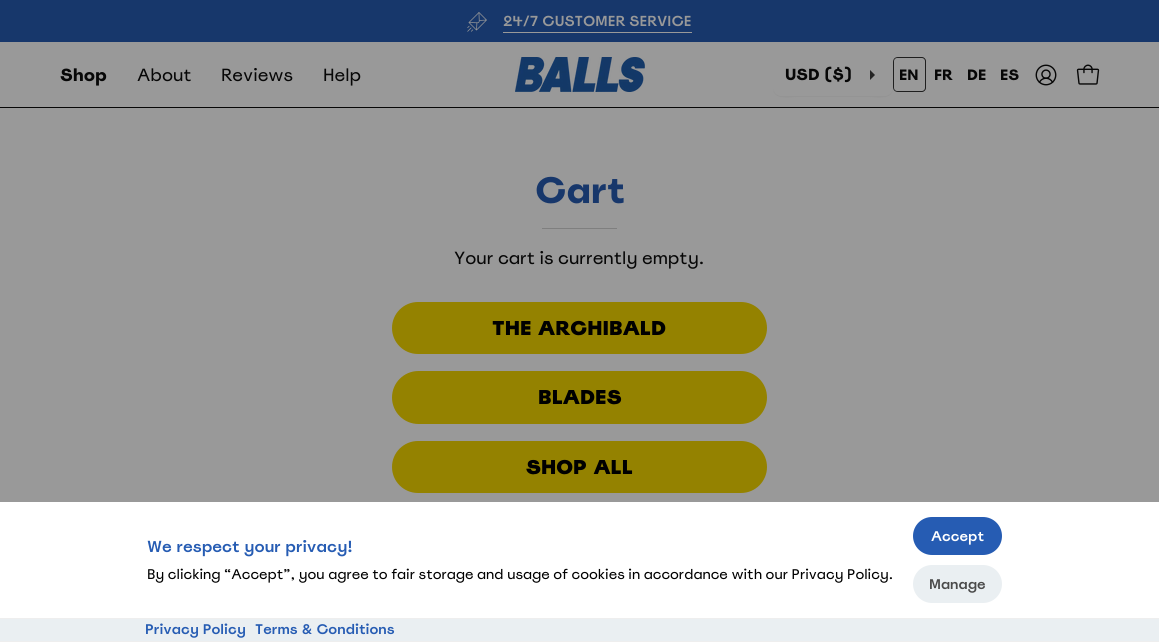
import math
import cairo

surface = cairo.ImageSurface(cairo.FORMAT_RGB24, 1159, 642)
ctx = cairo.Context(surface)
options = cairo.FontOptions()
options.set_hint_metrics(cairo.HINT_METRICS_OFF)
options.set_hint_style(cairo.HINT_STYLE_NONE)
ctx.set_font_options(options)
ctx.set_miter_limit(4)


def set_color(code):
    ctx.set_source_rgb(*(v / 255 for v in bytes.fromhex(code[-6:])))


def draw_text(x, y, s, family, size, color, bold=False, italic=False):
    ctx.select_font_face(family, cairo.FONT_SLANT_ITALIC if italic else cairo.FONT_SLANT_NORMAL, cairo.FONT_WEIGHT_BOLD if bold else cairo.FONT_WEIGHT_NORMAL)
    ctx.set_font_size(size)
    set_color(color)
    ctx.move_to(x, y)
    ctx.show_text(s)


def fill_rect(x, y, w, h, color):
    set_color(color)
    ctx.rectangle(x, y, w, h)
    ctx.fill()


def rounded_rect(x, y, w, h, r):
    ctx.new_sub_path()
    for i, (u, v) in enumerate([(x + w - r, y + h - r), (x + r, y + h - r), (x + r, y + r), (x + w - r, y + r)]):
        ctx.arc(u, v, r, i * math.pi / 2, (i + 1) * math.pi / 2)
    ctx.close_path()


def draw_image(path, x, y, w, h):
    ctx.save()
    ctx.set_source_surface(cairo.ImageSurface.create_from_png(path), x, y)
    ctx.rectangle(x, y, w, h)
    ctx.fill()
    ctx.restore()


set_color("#999999")
ctx.paint()
fill_rect(0, 0, 1159, 42, "#17376b")
draw_image("assets/img1.png", 467, 12, 20, 20)
draw_text(503, 26, "24/7 CUSTOMER SERVICE", "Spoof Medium", 14.5, "#999999")
fill_rect(503, 32, 189, 1, "#999999")
draw_image("assets/img2.png", 515, 57, 130, 35)
draw_text(60, 81, "Shop", "Spoof", 17.6, "#070707", bold=True)
draw_text(137, 81, "About", "Spoof", 17.6, "#070707")
draw_text(221, 81, "Reviews", "Spoof", 17.6, "#070707")
draw_text(323, 81, "Help", "Spoof", 17.6, "#070707")
set_color("#949494")
ctx.new_path()
ctx.move_to(773, 88)
ctx.curve_to(773, 101, 790, 97, 798, 97)
ctx.line_to(868, 97)
ctx.curve_to(876, 97, 893, 101, 893, 88)
ctx.curve_to(893, 92, 889, 96, 885, 96)
ctx.line_to(781, 96)
ctx.curve_to(777, 96, 773, 92, 773, 88)
ctx.close_path()
ctx.fill()
draw_text(785, 80, "USD ($)", "Spoof", 16, "#070707", bold=True)
set_color("#242424")
ctx.new_path()
ctx.move_to(870, 80)
ctx.line_to(870, 70)
ctx.line_to(875, 75)
ctx.close_path()
ctx.fill()
set_color("#1f1f1f")
ctx.set_fill_rule(cairo.FILL_RULE_EVEN_ODD)
ctx.new_path()
ctx.move_to(898, 57)
ctx.curve_to(895, 57, 893, 59, 893, 62)
ctx.line_to(893, 87)
ctx.curve_to(893, 90, 895, 92, 898, 92)
ctx.line_to(922, 92)
ctx.curve_to(924, 92, 926, 90, 926, 88)
ctx.line_to(926, 61)
ctx.curve_to(926, 59, 924, 57, 922, 57)
ctx.close_path()
ctx.move_to(897, 58)
ctx.curve_to(895.5, 58, 894, 59.5, 894, 61)
ctx.line_to(894, 88)
ctx.curve_to(894, 89.5, 895.5, 91, 897, 91)
ctx.line_to(922, 91)
ctx.curve_to(923.5, 91, 925, 89.5, 925, 88)
ctx.line_to(925, 61)
ctx.curve_to(925, 59.5, 923.5, 58, 922, 58)
ctx.close_path()
ctx.fill()
draw_text(899, 80, "EN", "Spoof", 15, "#070707", bold=True)
draw_text(934, 80, "FR", "Spoof", 15, "#070707", bold=True)
draw_text(967, 80, "DE", "Spoof", 15, "#070707", bold=True)
draw_text(1000, 80, "ES", "Spoof", 15, "#070707", bold=True)
draw_image("assets/img3.png", 1035, 64, 22, 22)
draw_image("assets/img4.png", 1076, 64, 24, 21)
fill_rect(0, 107, 1159, 1, "#070707")
draw_text(535, 203, "Cart", "Spoof", 37, "#17376b", bold=True)
fill_rect(542, 228, 75, 1, "#7f7f7f")
draw_text(454, 264, "Your cart is currently empty.", "Spoof", 17.6, "#070707")
set_color("#948200")
rounded_rect(392, 302, 375, 52, 26)
ctx.fill()
draw_text(492, 335, "THE ARCHIBALD", "Spoof Black", 20, "#000000")
set_color("#948200")
rounded_rect(392, 371, 375, 53, 26.5)
ctx.fill()
draw_text(538, 404, "BLADES", "Spoof Black", 20, "#000000")
set_color("#948200")
rounded_rect(392, 441, 375, 52, 26)
ctx.fill()
draw_text(526, 474, "SHOP ALL", "Spoof Black", 20, "#000000")
fill_rect(0, 502, 1159, 116, "#ffffff")
draw_text(147, 552, "We respect your privacy!", "Spoof Medium", 16, "#265cb3")
draw_text(147, 579, "By clicking “Accept”, you agree to fair storage and usage of cookies in accordance with our Privacy Policy.", "Spoof", 14, "#000000")
set_color("#265cb3")
rounded_rect(913, 517, 89, 38, 19)
ctx.fill()
draw_text(931, 541, "Accept", "Spoof Medium", 14, "#ffffff")
set_color("#eaeff2")
rounded_rect(913, 565, 89, 38, 19)
ctx.fill()
draw_text(929, 589, "Manage", "Spoof Medium", 14, "#4a4a4a")
fill_rect(0, 619, 1159, 22, "#eaeff2")
fill_rect(0, 618, 1159, 1, "#eeeeee")
fill_rect(0, 641, 1159, 1, "#eeeeee")
draw_text(145, 634, "Privacy Policy", "Spoof Medium", 14, "#265cb3")
draw_text(255, 634, "Terms & Conditions", "Spoof Medium", 14, "#265cb3")
surface.write_to_png("output.png")
